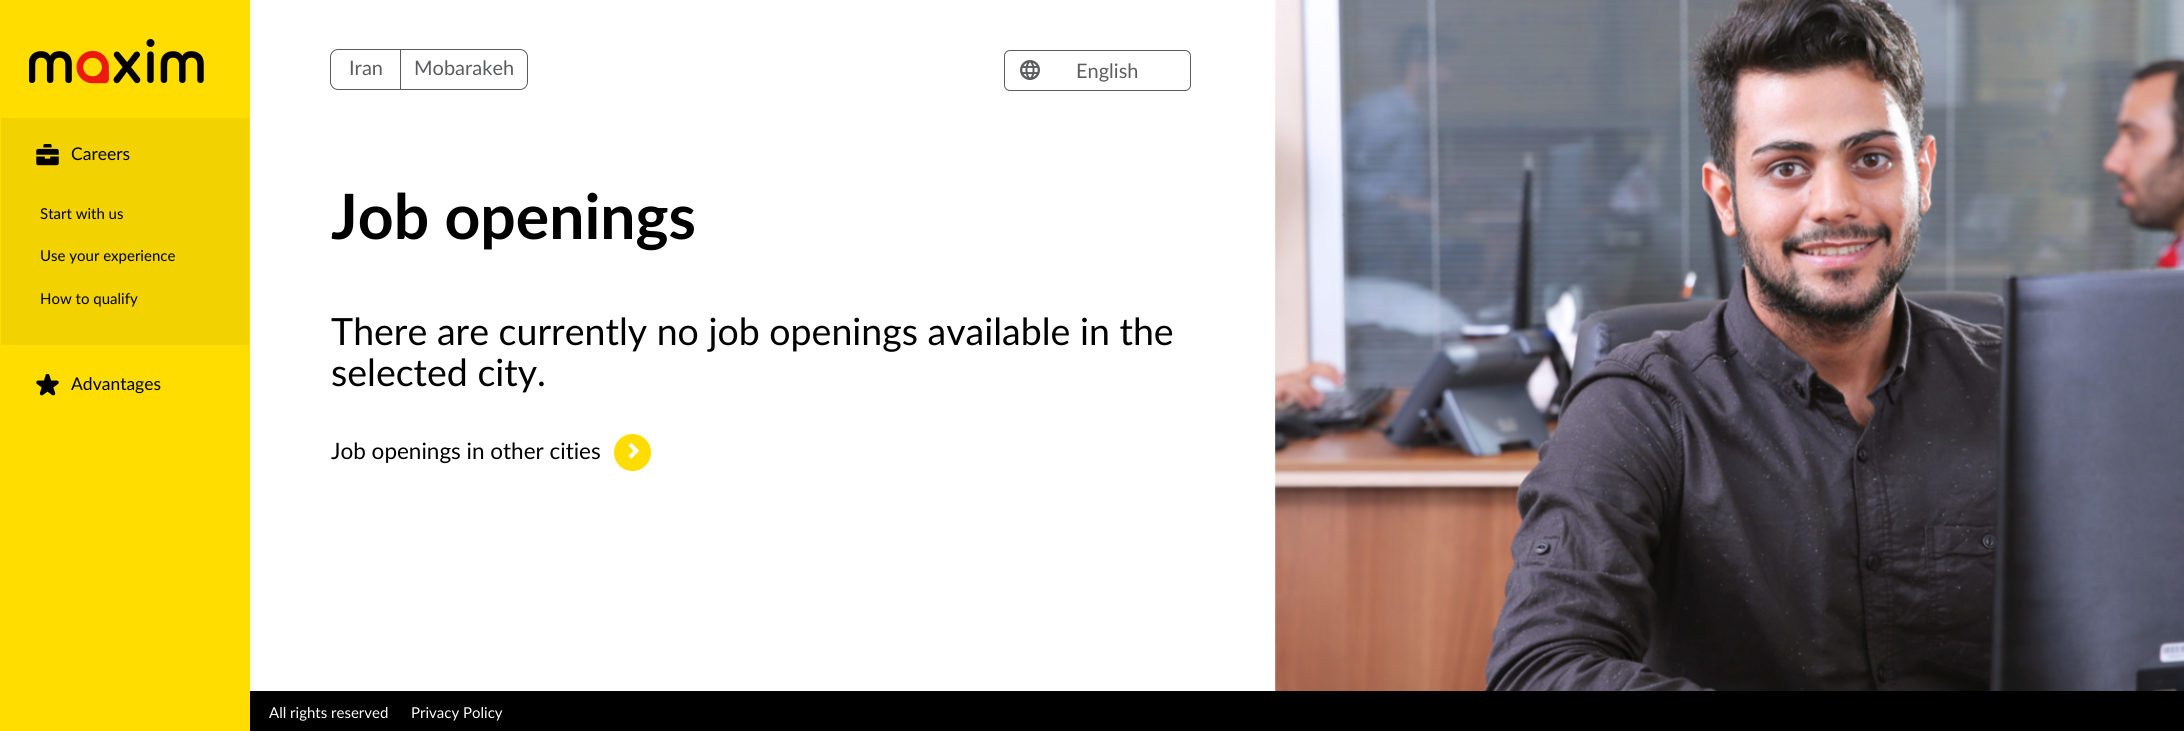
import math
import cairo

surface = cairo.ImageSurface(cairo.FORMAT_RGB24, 2184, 731)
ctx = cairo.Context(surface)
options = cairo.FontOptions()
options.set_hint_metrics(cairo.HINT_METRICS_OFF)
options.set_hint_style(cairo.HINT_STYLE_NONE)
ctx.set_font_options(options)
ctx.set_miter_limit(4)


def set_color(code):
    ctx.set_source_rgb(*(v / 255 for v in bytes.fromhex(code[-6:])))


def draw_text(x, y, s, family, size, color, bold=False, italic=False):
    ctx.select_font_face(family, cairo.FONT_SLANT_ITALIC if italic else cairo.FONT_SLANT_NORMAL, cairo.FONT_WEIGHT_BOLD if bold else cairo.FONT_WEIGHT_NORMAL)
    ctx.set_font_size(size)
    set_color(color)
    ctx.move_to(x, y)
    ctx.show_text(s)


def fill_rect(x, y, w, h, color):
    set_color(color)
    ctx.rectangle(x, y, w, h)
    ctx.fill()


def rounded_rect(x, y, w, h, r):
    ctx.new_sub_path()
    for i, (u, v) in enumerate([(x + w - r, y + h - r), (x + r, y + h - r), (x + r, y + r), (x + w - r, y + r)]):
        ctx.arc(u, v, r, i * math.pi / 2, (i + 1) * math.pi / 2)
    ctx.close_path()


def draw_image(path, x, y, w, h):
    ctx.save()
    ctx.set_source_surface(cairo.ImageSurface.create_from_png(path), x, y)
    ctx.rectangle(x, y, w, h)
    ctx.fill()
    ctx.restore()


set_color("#ffffff")
ctx.paint()
fill_rect(0, 0, 250, 731, "#ffdd00")
draw_image("assets/img1.png", 29, 39, 175, 45)
fill_rect(1, 118, 248, 227, "#f2d201")
draw_image("assets/img2.png", 36, 144, 23, 22)
draw_text(71, 160, "Careers", "Lato", 17.5, "#000000")
draw_text(40, 219, "Start with us", "Lato", 15, "#000000")
draw_text(40, 261, "Use your experience", "Lato", 15, "#000000")
draw_text(40, 304, "How to qualify", "Lato", 15, "#000000")
draw_image("assets/img3.png", 36, 374, 23, 22)
draw_text(71, 390, "Advantages", "Lato", 17.5, "#000000")
ctx.new_path()
ctx.move_to(338, 49.5)
ctx.line_to(400.5, 49.5)
ctx.line_to(400.5, 89.5)
ctx.line_to(338, 89.5)
ctx.curve_to(334, 89.5, 330.5, 86, 330.5, 82)
ctx.line_to(330.5, 57)
ctx.curve_to(330.5, 53, 334, 49.5, 338, 49.5)
ctx.close_path()
set_color("#5b5c5e")
ctx.set_line_width(1)
ctx.stroke()
draw_text(349, 75, "Iran", "Lato", 20, "#5b5c5e")
ctx.new_path()
ctx.move_to(400.5, 49.5)
ctx.line_to(520, 49.5)
ctx.curve_to(524, 49.5, 527.5, 53, 527.5, 57)
ctx.line_to(527.5, 82)
ctx.curve_to(527.5, 86, 524, 89.5, 520, 89.5)
ctx.line_to(400.5, 89.5)
ctx.close_path()
ctx.stroke()
draw_text(414, 75, "Mobarakeh", "Lato", 20, "#5b5c5e")
rounded_rect(1004.5, 50.5, 186, 40, 5.5)
ctx.stroke()
draw_image("assets/img4.png", 1020, 60, 20, 20)
draw_text(1076, 78, "English", "Lato", 20, "#5b5c5e")
draw_text(331, 239, "Job openings", "Lato", 62.5, "#000000", bold=True)
draw_text(331, 345, "There are currently no job openings available in the", "Lato", 37.5, "#000000")
draw_text(331, 386, "selected city.", "Lato", 37.5, "#000000")
draw_text(331, 459, "Job openings in other cities", "Lato", 22.5, "#000000")
set_color("#ffdd00")
ctx.new_path()
ctx.arc(632.5, 452.5, 18.5, 0, 2 * math.pi)
ctx.fill()
draw_image("assets/img5.png", 628, 442, 12, 17)
draw_image("assets/img6.png", 1275, 0, 909, 691)
fill_rect(250, 691, 1934, 40, "#000000")
draw_text(269, 718, "All rights reserved", "Lato", 15, "#ffffff")
draw_text(411, 718, "Privacy Policy", "Lato", 15, "#ffffff")
surface.write_to_png("output.png")
